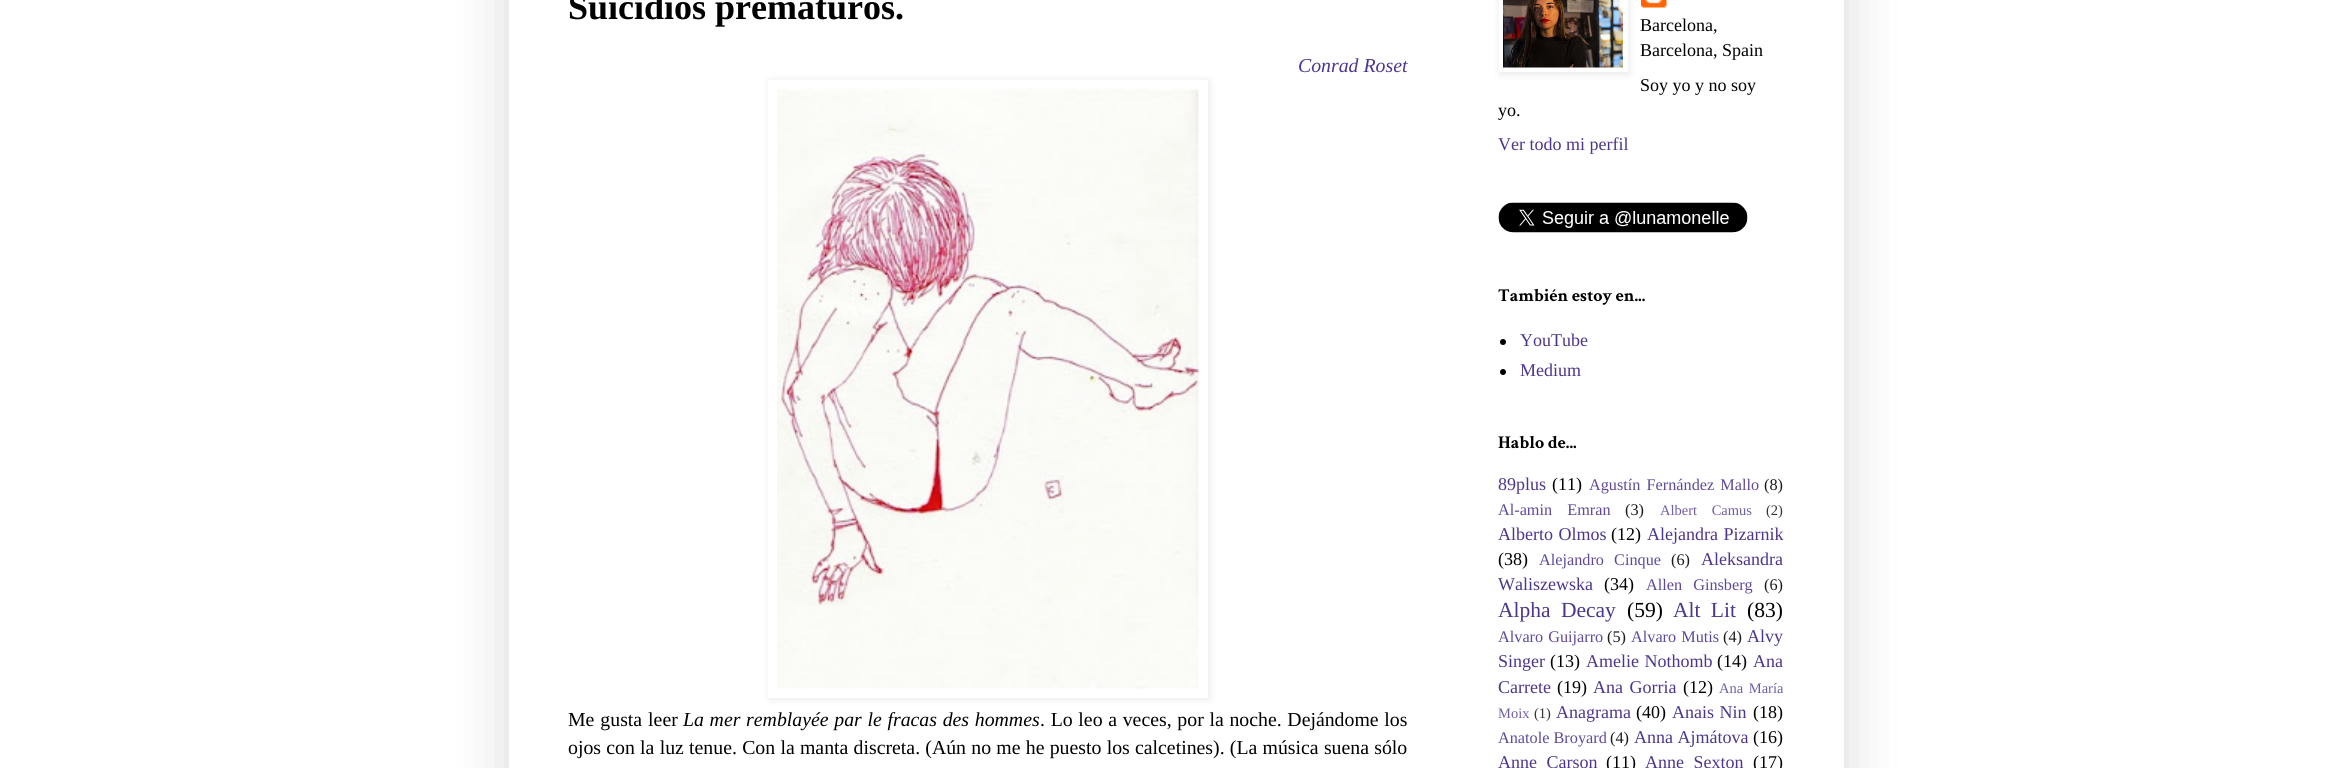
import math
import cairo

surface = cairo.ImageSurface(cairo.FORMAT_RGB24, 2350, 768)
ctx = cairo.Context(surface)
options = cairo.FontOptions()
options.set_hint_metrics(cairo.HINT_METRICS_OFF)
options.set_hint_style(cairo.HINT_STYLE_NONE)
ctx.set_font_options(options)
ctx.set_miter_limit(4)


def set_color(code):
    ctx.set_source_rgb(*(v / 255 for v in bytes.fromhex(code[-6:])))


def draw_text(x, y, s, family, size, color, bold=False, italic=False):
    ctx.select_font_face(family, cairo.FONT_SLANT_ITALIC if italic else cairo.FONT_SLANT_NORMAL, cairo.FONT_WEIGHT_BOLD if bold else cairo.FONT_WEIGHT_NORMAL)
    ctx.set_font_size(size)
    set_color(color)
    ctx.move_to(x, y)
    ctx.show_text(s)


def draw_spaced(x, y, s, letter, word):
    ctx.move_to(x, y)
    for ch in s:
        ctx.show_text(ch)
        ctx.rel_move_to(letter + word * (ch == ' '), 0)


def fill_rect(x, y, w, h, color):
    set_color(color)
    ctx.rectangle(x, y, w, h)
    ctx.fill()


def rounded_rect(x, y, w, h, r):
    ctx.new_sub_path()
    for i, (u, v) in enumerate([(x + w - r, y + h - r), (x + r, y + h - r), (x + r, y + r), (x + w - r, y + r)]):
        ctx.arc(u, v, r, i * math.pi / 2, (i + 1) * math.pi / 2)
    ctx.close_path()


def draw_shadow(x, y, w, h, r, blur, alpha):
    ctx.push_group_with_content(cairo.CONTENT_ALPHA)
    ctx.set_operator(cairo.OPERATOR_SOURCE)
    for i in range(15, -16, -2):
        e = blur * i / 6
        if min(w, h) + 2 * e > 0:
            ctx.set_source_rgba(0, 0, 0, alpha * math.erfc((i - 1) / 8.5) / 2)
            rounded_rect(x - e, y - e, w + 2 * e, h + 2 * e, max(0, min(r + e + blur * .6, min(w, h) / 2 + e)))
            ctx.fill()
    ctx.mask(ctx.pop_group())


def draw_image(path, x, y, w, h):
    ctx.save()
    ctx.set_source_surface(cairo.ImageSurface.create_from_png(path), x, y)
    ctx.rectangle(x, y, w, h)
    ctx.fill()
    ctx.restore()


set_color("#ffffff")
ctx.paint()
set_color("#000000")
draw_shadow(509, -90, 1335, 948, 0, 30, 0.15)
fill_rect(509, 0, 1335, 768, "#ffffff")
draw_text(568, 19, "Suicidios prematuros.", "Liberation Serif", 36, "#000000", bold=True)
draw_text(1298, 72, "Conrad Roset", "Liberation Serif", 19.8, "#4e358c", italic=True)
set_color("#000000")
draw_shadow(770, 81, 439, 618, 0, 4, 0.1)
fill_rect(768, 80, 440, 618, "#ffffff")
draw_image("assets/img1.png", 777, 88, 422, 601)
ctx.select_font_face("Liberation Serif")
set_color("#000000")
draw_spaced(568, 726, "Me gusta leer", 0, 1)
ctx.select_font_face("Liberation Serif", cairo.FONT_SLANT_ITALIC)
draw_spaced(683, 726, "La mer remblayée par le fracas des hommes", 0, 0.75)
ctx.select_font_face("Liberation Serif")
draw_spaced(1040, 726, ". Lo leo a veces, por la noche. Dejándome los", 0, 0.75)
draw_spaced(568, 754, "ojos con la luz tenue. Con la manta discreta. (Aún no me he puesto los calcetines). (La música suena sólo", 0, 0.3)
draw_image("assets/img3.png", 1641, 0, 26, 8)
set_color("#000000")
draw_shadow(1500, -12, 129, 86, 0, 4, 0.1)
fill_rect(1499, 0, 129, 72, "#ffffff")
draw_image("assets/img2.png", 1503, 0, 120, 68)
draw_text(1640, 31, "Barcelona,", "Liberation Serif", 18, "#000000")
draw_text(1640, 56, "Barcelona, Spain", "Liberation Serif", 18, "#000000")
draw_text(1640, 91, "Soy yo y no soy", "Liberation Serif", 18, "#000000")
draw_text(1498, 116, "yo.", "Liberation Serif", 18, "#000000")
draw_text(1498, 150, "Ver todo mi perfil", "Liberation Serif", 18, "#4e358c")
draw_image("assets/img4.png", 1498, 202, 250, 31)
draw_text(1498, 301, "También estoy en...", "Crimson Text", 18, "#000000", bold=True)
ctx.new_path()
ctx.arc(1503, 342, 3, 0, 2 * math.pi)
ctx.fill()
draw_text(1520, 346, "YouTube", "Liberation Serif", 18, "#4e358c")
set_color("#000000")
ctx.new_path()
ctx.arc(1503, 372, 3, 0, 2 * math.pi)
ctx.fill()
draw_text(1520, 376, "Medium", "Liberation Serif", 18, "#4e358c")
draw_text(1498, 448, "Hablo de...", "Crimson Text", 18, "#000000", bold=True)
draw_text(1498, 490, "89plus", "Liberation Serif", 18, "#4e358c")
draw_text(1552, 490, "(11)", "Liberation Serif", 18, "#000000")
ctx.set_font_size(16.25)
set_color("#604998")
draw_spaced(1589, 490, "Agustín Fernández Mallo", 0, 2)
draw_text(1764, 490, "(8)", "Liberation Serif", 16.25, "#1a1a1a")
set_color("#604998")
draw_spaced(1498, 515, "Al-amin Emran", 0, 11)
draw_text(1625, 515, "(3)", "Liberation Serif", 16.25, "#1a1a1a")
ctx.set_font_size(14.5)
set_color("#715da3")
draw_spaced(1660, 515, "Albert Camus", 0, 11)
draw_text(1766, 515, "(2)", "Liberation Serif", 14.5, "#333333")
ctx.set_font_size(18)
set_color("#4e358c")
draw_spaced(1498, 540, "Alberto Olmos", 0, 1)
draw_text(1611, 540, "(12)", "Liberation Serif", 18, "#000000")
set_color("#4e358c")
draw_spaced(1647, 540, "Alejandra Pizarnik", 0, 1)
draw_text(1498, 565, "(38)", "Liberation Serif", 18, "#000000")
ctx.set_font_size(16.25)
set_color("#604998")
draw_spaced(1539, 565, "Alejandro Cinque", 0, 6)
draw_text(1671, 565, "(6)", "Liberation Serif", 16.25, "#1a1a1a")
draw_text(1701, 565, "Aleksandra", "Liberation Serif", 18, "#4e358c")
draw_text(1498, 590, "Waliszewska", "Liberation Serif", 18, "#4e358c")
draw_text(1604, 590, "(34)", "Liberation Serif", 18, "#000000")
ctx.set_font_size(16.25)
set_color("#604998")
draw_spaced(1646, 590, "Allen Ginsberg", 0, 7)
draw_text(1764, 590, "(6)", "Liberation Serif", 16.25, "#1a1a1a")
ctx.set_font_size(21.5)
set_color("#4e358c")
draw_spaced(1498, 617, "Alpha Decay", 0, 5)
draw_text(1627, 617, "(59)", "Liberation Serif", 21.5, "#000000")
set_color("#4e358c")
draw_spaced(1673, 617, "Alt Lit", 0, 5)
draw_text(1747, 617, "(83)", "Liberation Serif", 21.5, "#000000")
ctx.set_font_size(16.25)
set_color("#604998")
draw_spaced(1498, 642, "Alvaro Guijarro", 0, 1)
draw_text(1607, 642, "(5)", "Liberation Serif", 16.25, "#1a1a1a")
set_color("#604998")
draw_spaced(1631, 642, "Alvaro Mutis", 0, 1)
draw_text(1723, 642, "(4)", "Liberation Serif", 16.25, "#1a1a1a")
draw_text(1747, 642, "Alvy", "Liberation Serif", 18, "#4e358c")
draw_text(1498, 667, "Singer", "Liberation Serif", 18, "#4e358c")
draw_text(1550, 667, "(13)", "Liberation Serif", 18, "#000000")
set_color("#4e358c")
draw_spaced(1586, 667, "Amelie Nothomb", 0, 1)
draw_text(1717, 667, "(14)", "Liberation Serif", 18, "#000000")
draw_text(1753, 667, "Ana", "Liberation Serif", 18, "#4e358c")
draw_text(1498, 693, "Carrete", "Liberation Serif", 18, "#4e358c")
draw_text(1557, 693, "(19)", "Liberation Serif", 18, "#000000")
set_color("#4e358c")
draw_spaced(1593, 693, "Ana Gorria", 0, 2)
draw_text(1683, 693, "(12)", "Liberation Serif", 18, "#000000")
ctx.set_font_size(14.5)
set_color("#715da3")
draw_spaced(1719, 693, "Ana María", 0, 2)
draw_text(1498, 718, "Moix", "Liberation Serif", 14.5, "#715da3")
draw_text(1534, 718, "(1)", "Liberation Serif", 14.5, "#333333")
draw_text(1556, 718, "Anagrama", "Liberation Serif", 18, "#4e358c")
draw_text(1636, 718, "(40)", "Liberation Serif", 18, "#000000")
set_color("#4e358c")
draw_spaced(1672, 718, "Anais Nin", 0, 1)
draw_text(1753, 718, "(18)", "Liberation Serif", 18, "#000000")
draw_text(1498, 743, "Anatole Broyard", "Liberation Serif", 16.25, "#604998")
draw_text(1610, 743, "(4)", "Liberation Serif", 16.25, "#1a1a1a")
draw_text(1634, 743, "Anna Ajmátova", "Liberation Serif", 18, "#4e358c")
draw_text(1753, 743, "(16)", "Liberation Serif", 18, "#000000")
set_color("#4e358c")
draw_spaced(1498, 768, "Anne Carson", 0, 5)
draw_text(1606, 768, "(11)", "Liberation Serif", 18, "#000000")
set_color("#4e358c")
draw_spaced(1645, 768, "Anne Sexton", 0, 5)
draw_text(1753, 768, "(17)", "Liberation Serif", 18, "#000000")
surface.write_to_png("output.png")
